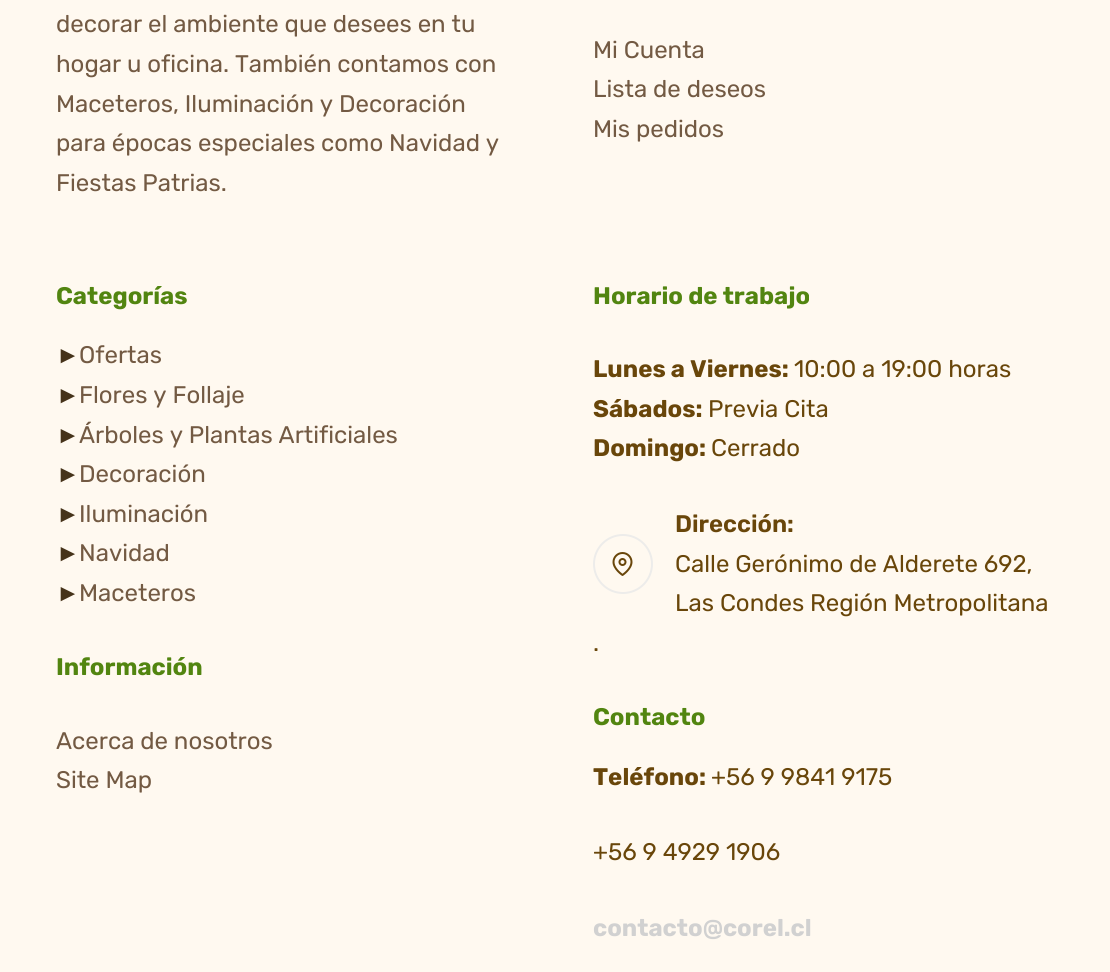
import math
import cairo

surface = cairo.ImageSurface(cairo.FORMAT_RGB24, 1110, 972)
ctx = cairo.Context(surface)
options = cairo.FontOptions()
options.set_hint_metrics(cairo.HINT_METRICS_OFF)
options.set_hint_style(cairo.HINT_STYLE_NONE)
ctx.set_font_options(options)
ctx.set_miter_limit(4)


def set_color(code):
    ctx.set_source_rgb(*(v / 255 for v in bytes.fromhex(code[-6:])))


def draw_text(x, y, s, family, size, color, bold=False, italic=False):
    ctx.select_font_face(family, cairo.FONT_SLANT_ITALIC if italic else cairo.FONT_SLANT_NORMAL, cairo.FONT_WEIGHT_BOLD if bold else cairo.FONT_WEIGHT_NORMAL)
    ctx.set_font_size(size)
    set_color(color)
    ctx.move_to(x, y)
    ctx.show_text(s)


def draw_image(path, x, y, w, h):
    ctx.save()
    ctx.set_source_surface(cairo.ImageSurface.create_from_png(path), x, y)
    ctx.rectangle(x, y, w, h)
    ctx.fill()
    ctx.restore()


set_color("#fff9f0")
ctx.paint()
draw_text(56, 32, "decorar el ambiente que desees en tu", "Rubik", 24, "#735a43")
draw_text(56, 72, "hogar u oficina. También contamos con", "Rubik", 24, "#735a43")
draw_text(56, 112, "Maceteros, Iluminación y Decoración", "Rubik", 24, "#735a43")
draw_text(56, 151, "para épocas especiales como Navidad y", "Rubik", 24, "#735a43")
draw_text(56, 191, "Fiestas Patrias.", "Rubik", 24, "#735a43")
draw_text(593, 58, "Mi Cuenta", "Rubik", 24, "#735a43")
draw_text(593, 97, "Lista de deseos", "Rubik", 24, "#735a43")
draw_text(593, 137, "Mis pedidos", "Rubik", 24, "#735a43")
draw_text(56, 304, "Categorías", "Rubik", 24, "#528510", bold=True)
draw_text(56, 363, "►", "Liberation Sans", 24, "#46331a")
draw_text(79, 363, "Ofertas", "Rubik", 24, "#735a43")
draw_text(56, 403, "►", "Liberation Sans", 24, "#46331a")
draw_text(79, 403, "Flores y Follaje", "Rubik", 24, "#735a43")
draw_text(56, 443, "►", "Liberation Sans", 24, "#46331a")
draw_text(79, 443, "Árboles y Plantas Artificiales", "Rubik", 24, "#735a43")
draw_text(56, 482, "►", "Liberation Sans", 24, "#46331a")
draw_text(79, 482, "Decoración", "Rubik", 24, "#735a43")
draw_text(56, 522, "►", "Liberation Sans", 24, "#46331a")
draw_text(79, 522, "Iluminación", "Rubik", 24, "#735a43")
draw_text(56, 561, "►", "Liberation Sans", 24, "#46331a")
draw_text(79, 561, "Navidad", "Rubik", 24, "#735a43")
draw_text(56, 601, "►", "Liberation Sans", 24, "#46331a")
draw_text(79, 601, "Maceteros", "Rubik", 24, "#735a43")
draw_text(56, 675, "Información", "Rubik", 24, "#528510", bold=True)
draw_text(56, 749, "Acerca de nosotros", "Rubik", 24, "#735a43")
draw_text(56, 788, "Site Map", "Rubik", 24, "#735a43")
draw_text(593, 304, "Horario de trabajo", "Rubik", 24, "#528510", bold=True)
draw_text(593, 377, "Lunes a Viernes:", "Rubik", 24, "#69460a", bold=True)
draw_text(794, 377, "10:00 a 19:00 horas", "Rubik", 24, "#69460a")
draw_text(593, 417, "Sábados:", "Rubik", 24, "#69460a", bold=True)
draw_text(708, 417, "Previa Cita", "Rubik", 24, "#69460a")
draw_text(593, 456, "Domingo:", "Rubik", 24, "#69460a", bold=True)
draw_text(711, 456, "Cerrado", "Rubik", 24, "#69460a")
ctx.new_path()
ctx.arc(623, 564, 29, 0, 2 * math.pi)
set_color("#edecea")
ctx.stroke()
draw_image("assets/img1.png", 612, 552, 21, 24)
draw_text(675, 532, "Dirección:", "Rubik SemiBold", 24, "#69460a")
draw_text(675, 572, "Calle Gerónimo de Alderete 692,", "Rubik", 24, "#69460a")
draw_text(675, 611, "Las Condes Región Metropolitana", "Rubik", 24, "#69460a")
draw_text(593, 651, ".", "Rubik", 24, "#69460a")
draw_text(593, 725, "Contacto", "Rubik", 24, "#528510", bold=True)
draw_text(593, 785, "Teléfono:", "Rubik", 24, "#69460a", bold=True)
draw_text(711, 785, "+56 9 9841 9175", "Rubik", 24, "#69460a")
draw_text(593, 860, "+56 9 4929 1906", "Rubik", 24, "#69460a")
draw_text(593, 936, "contacto@corel.cl", "Rubik", 24, "#d1d1d1", bold=True)
surface.write_to_png("output.png")
